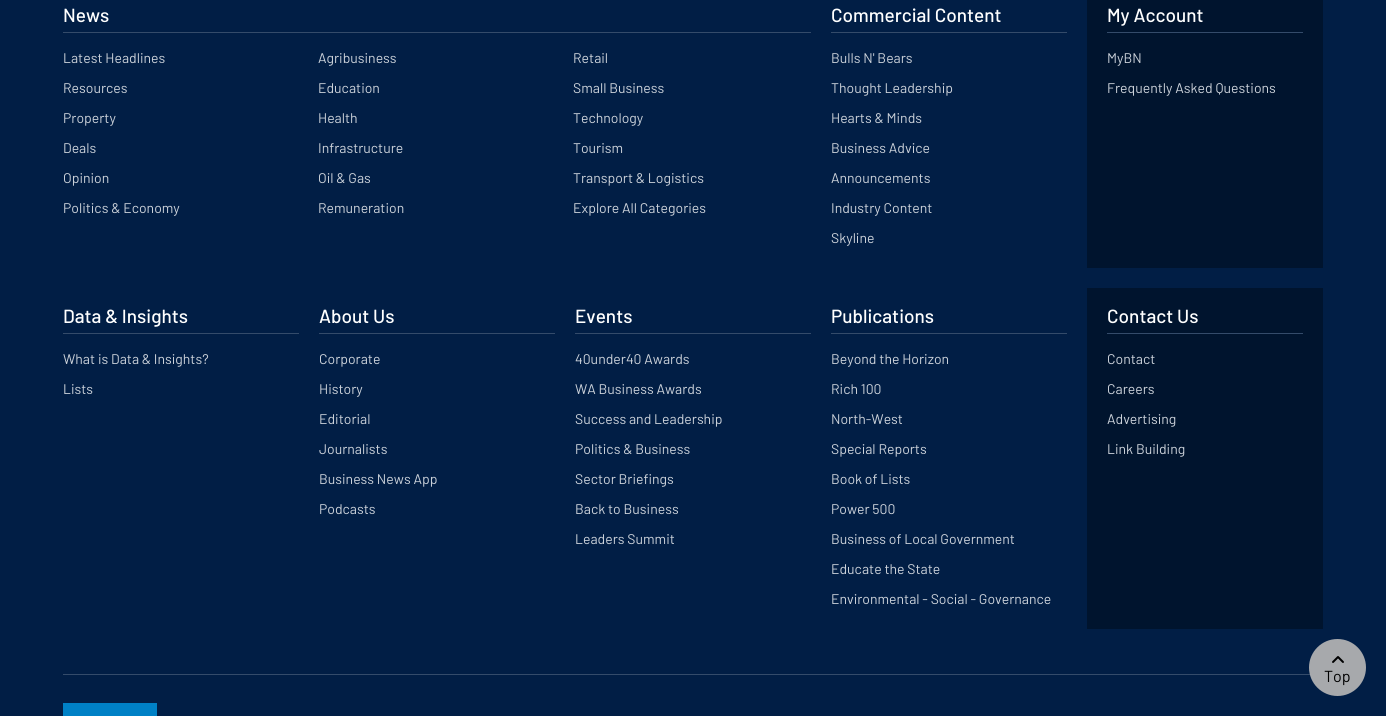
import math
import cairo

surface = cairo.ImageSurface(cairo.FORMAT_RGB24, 1386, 716)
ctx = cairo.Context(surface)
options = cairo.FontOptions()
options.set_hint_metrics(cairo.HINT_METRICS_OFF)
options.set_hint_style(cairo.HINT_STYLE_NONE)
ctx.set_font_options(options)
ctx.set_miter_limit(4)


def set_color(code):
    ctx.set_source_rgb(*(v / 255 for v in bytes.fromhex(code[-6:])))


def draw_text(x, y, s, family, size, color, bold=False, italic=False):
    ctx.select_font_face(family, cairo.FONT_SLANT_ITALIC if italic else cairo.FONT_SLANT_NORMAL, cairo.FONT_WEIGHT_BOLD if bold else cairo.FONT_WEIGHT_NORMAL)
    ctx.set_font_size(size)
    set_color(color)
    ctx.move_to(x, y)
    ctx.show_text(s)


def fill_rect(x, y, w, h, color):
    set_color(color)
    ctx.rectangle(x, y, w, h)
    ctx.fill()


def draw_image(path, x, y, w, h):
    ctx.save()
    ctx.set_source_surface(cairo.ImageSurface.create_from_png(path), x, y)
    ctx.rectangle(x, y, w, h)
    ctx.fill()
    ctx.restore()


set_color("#011e45")
ctx.paint()
fill_rect(63, 32, 748, 1, "#344b6a")
draw_text(63, 22, "News", "Barlow Medium", 19, "#ffffff")
draw_text(63, 63, "Latest Headlines", "Barlow", 14, "#ccd2da")
draw_text(318, 63, "Agribusiness", "Barlow", 14, "#ccd2da")
draw_text(573, 63, "Retail", "Barlow", 14, "#ccd2da")
draw_text(63, 93, "Resources", "Barlow", 14, "#ccd2da")
draw_text(318, 93, "Education", "Barlow", 14, "#ccd2da")
draw_text(573, 93, "Small Business", "Barlow", 14, "#ccd2da")
draw_text(63, 123, "Property", "Barlow", 14, "#ccd2da")
draw_text(318, 123, "Health", "Barlow", 14, "#ccd2da")
draw_text(573, 123, "Technology", "Barlow", 14, "#ccd2da")
draw_text(63, 153, "Deals", "Barlow", 14, "#ccd2da")
draw_text(318, 153, "Infrastructure", "Barlow", 14, "#ccd2da")
draw_text(573, 153, "Tourism", "Barlow", 14, "#ccd2da")
draw_text(63, 183, "Opinion", "Barlow", 14, "#ccd2da")
draw_text(318, 183, "Oil & Gas", "Barlow", 14, "#ccd2da")
draw_text(573, 183, "Transport & Logistics", "Barlow", 14, "#ccd2da")
draw_text(63, 213, "Politics & Economy", "Barlow", 14, "#ccd2da")
draw_text(318, 213, "Remuneration", "Barlow", 14, "#ccd2da")
draw_text(573, 213, "Explore All Categories", "Barlow", 14, "#ccd2da")
fill_rect(831, 32, 236, 1, "#344b6a")
draw_text(831, 22, "Commercial Content", "Barlow Medium", 19, "#ffffff")
draw_text(831, 63, "Bulls N' Bears", "Barlow", 14, "#ccd2da")
draw_text(831, 93, "Thought Leadership", "Barlow", 14, "#ccd2da")
draw_text(831, 123, "Hearts & Minds", "Barlow", 14, "#ccd2da")
draw_text(831, 153, "Business Advice", "Barlow", 14, "#ccd2da")
draw_text(831, 183, "Announcements", "Barlow", 14, "#ccd2da")
draw_text(831, 213, "Industry Content", "Barlow", 14, "#ccd2da")
draw_text(831, 243, "Skyline", "Barlow", 14, "#ccd2da")
fill_rect(1087, 0, 236, 268, "#00142e")
fill_rect(1107, 32, 196, 1, "#344b6a")
draw_text(1107, 22, "My Account", "Barlow Medium", 19, "#ffffff")
draw_text(1107, 63, "MyBN", "Barlow", 14, "#ccd2da")
draw_text(1107, 93, "Frequently Asked Questions", "Barlow", 14, "#ccd2da")
fill_rect(63, 333, 236, 1, "#344b6a")
draw_text(63, 323, "Data & Insights", "Barlow Medium", 19, "#ffffff")
draw_text(63, 364, "What is Data & Insights?", "Barlow", 14, "#ccd2da")
draw_text(63, 394, "Lists", "Barlow", 14, "#ccd2da")
fill_rect(319, 333, 236, 1, "#344b6a")
draw_text(319, 323, "About Us", "Barlow Medium", 19, "#ffffff")
draw_text(319, 364, "Corporate", "Barlow", 14, "#ccd2da")
draw_text(319, 394, "History", "Barlow", 14, "#ccd2da")
draw_text(319, 424, "Editorial", "Barlow", 14, "#ccd2da")
draw_text(319, 454, "Journalists", "Barlow", 14, "#ccd2da")
draw_text(319, 484, "Business News App", "Barlow", 14, "#ccd2da")
draw_text(319, 514, "Podcasts", "Barlow", 14, "#ccd2da")
fill_rect(575, 333, 236, 1, "#344b6a")
draw_text(575, 323, "Events", "Barlow Medium", 19, "#ffffff")
draw_text(575, 364, "40under40 Awards", "Barlow", 14, "#ccd2da")
draw_text(575, 394, "WA Business Awards", "Barlow", 14, "#ccd2da")
draw_text(575, 424, "Success and Leadership", "Barlow", 14, "#ccd2da")
draw_text(575, 454, "Politics & Business", "Barlow", 14, "#ccd2da")
draw_text(575, 484, "Sector Briefings", "Barlow", 14, "#ccd2da")
draw_text(575, 514, "Back to Business", "Barlow", 14, "#ccd2da")
draw_text(575, 544, "Leaders Summit", "Barlow", 14, "#ccd2da")
fill_rect(831, 333, 236, 1, "#344b6a")
draw_text(831, 323, "Publications", "Barlow Medium", 19, "#ffffff")
draw_text(831, 364, "Beyond the Horizon", "Barlow", 14, "#ccd2da")
draw_text(831, 394, "Rich 100", "Barlow", 14, "#ccd2da")
draw_text(831, 424, "North-West", "Barlow", 14, "#ccd2da")
draw_text(831, 454, "Special Reports", "Barlow", 14, "#ccd2da")
draw_text(831, 484, "Book of Lists", "Barlow", 14, "#ccd2da")
draw_text(831, 514, "Power 500", "Barlow", 14, "#ccd2da")
draw_text(831, 544, "Business of Local Government", "Barlow", 14, "#ccd2da")
draw_text(831, 574, "Educate the State", "Barlow", 14, "#ccd2da")
draw_text(831, 604, "Environmental - Social - Governance", "Barlow", 14, "#ccd2da")
fill_rect(1087, 288, 236, 341, "#00142e")
fill_rect(1107, 333, 196, 1, "#344b6a")
draw_text(1107, 323, "Contact Us", "Barlow Medium", 19, "#ffffff")
draw_text(1107, 364, "Contact", "Barlow", 14, "#ccd2da")
draw_text(1107, 394, "Careers", "Barlow", 14, "#ccd2da")
draw_text(1107, 424, "Advertising", "Barlow", 14, "#ccd2da")
draw_text(1107, 454, "Link Building", "Barlow", 14, "#ccd2da")
fill_rect(63, 674, 1247, 1, "#344b6a")
fill_rect(63, 703, 94, 13, "#0081c6")
set_color("#a7a9ac")
ctx.new_path()
ctx.arc(1337.5, 667.5, 28.5, 0, 2 * math.pi)
ctx.fill()
draw_image("assets/img1.png", 1332, 656, 12, 7)
draw_text(1324, 682, "Top", "Barlow", 16, "#000000")
surface.write_to_png("output.png")
